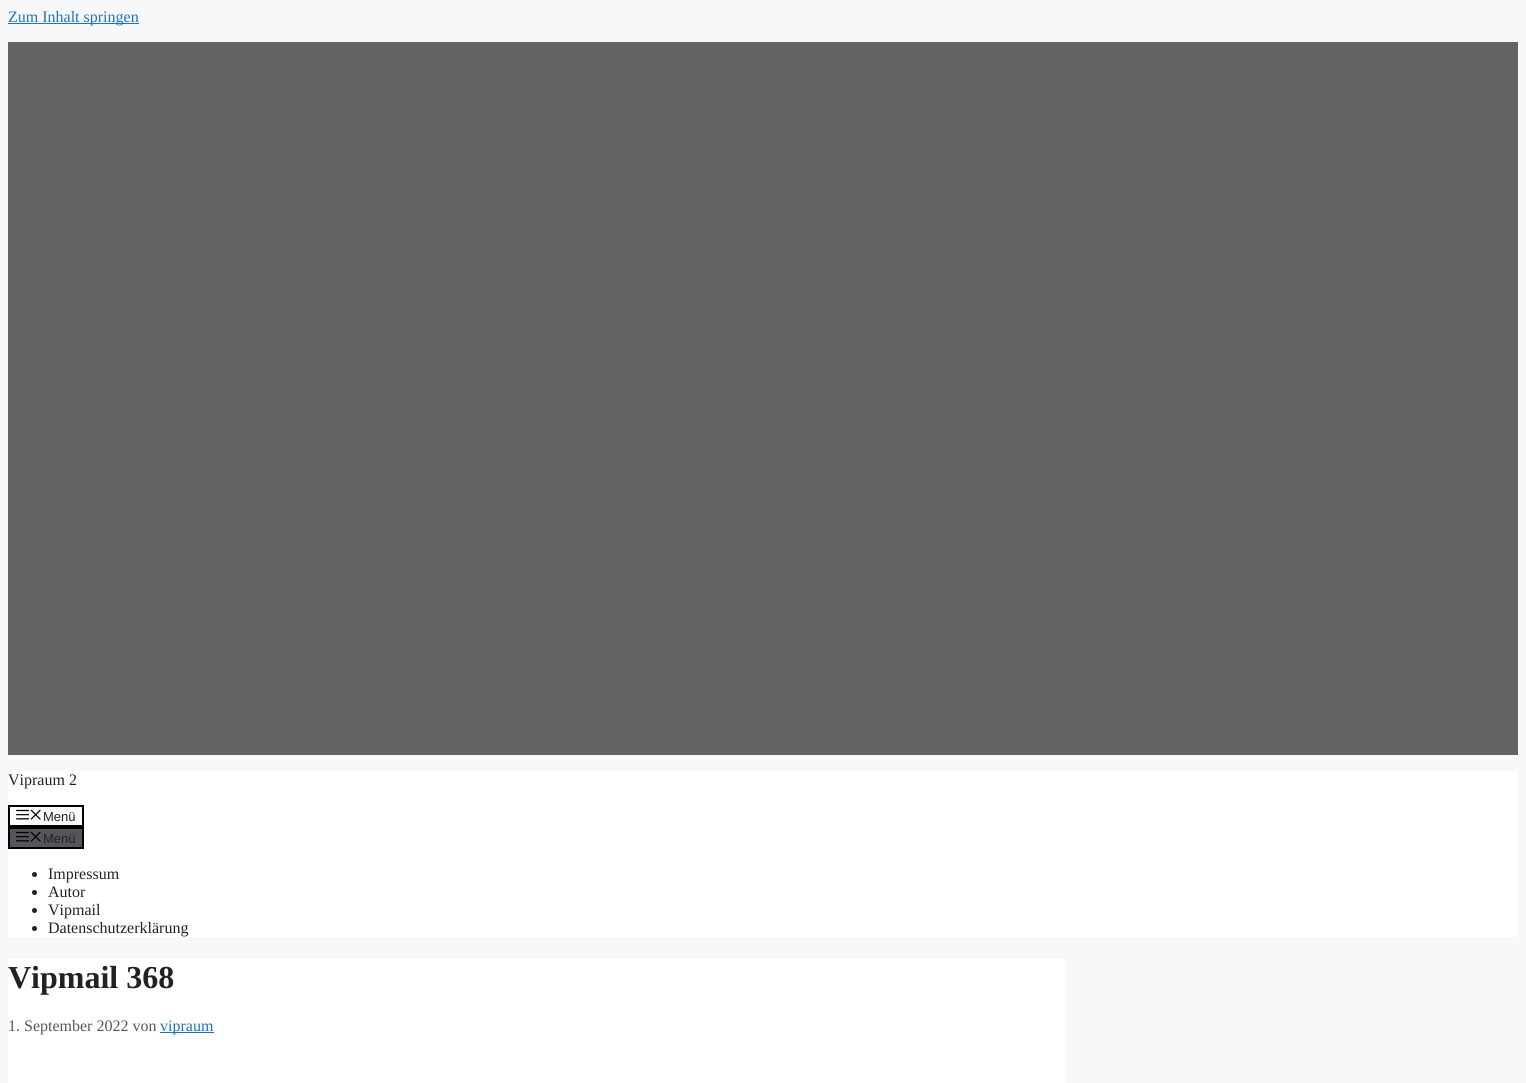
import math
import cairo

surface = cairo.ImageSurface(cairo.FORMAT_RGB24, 1526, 1083)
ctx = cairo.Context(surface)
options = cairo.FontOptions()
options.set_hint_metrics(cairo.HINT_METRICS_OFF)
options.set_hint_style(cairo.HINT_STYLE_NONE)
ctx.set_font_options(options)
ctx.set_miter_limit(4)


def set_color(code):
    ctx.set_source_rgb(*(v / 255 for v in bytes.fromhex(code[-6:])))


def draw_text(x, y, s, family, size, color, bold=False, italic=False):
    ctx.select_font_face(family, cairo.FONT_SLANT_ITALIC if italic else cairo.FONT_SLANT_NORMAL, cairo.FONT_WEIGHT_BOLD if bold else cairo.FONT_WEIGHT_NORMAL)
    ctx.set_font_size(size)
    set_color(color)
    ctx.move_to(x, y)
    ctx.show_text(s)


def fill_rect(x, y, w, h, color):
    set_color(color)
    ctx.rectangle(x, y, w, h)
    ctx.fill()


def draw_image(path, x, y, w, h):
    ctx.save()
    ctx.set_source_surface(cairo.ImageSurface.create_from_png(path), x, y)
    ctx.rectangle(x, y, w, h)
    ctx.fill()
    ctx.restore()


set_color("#f7f8f9")
ctx.paint()
fill_rect(8, 23, 131, 1, "#1e73be")
draw_text(8, 22, "Zum Inhalt springen", "Liberation Serif", 16, "#1e73be")
fill_rect(8, 42, 1510, 713, "#636363")
fill_rect(8, 771, 1510, 166, "#ffffff")
draw_text(8, 785, "Vipraum 2", "Liberation Serif", 16, "#222222")
set_color("#fafafa")
ctx.rectangle(9, 806, 74, 20)
ctx.fill_preserve()
set_color("#000000")
ctx.stroke()
draw_image("assets/img1.png", 16, 809, 13, 11)
draw_image("assets/img2.png", 30, 809, 11, 11)
draw_text(43, 821, "Menü", "Liberation Sans", 13, "#222222")
set_color("#55555e")
ctx.rectangle(9, 828, 74, 20)
ctx.fill_preserve()
set_color("#000000")
ctx.stroke()
draw_image("assets/img3.png", 16, 831, 13, 11)
draw_image("assets/img4.png", 30, 831, 11, 11)
draw_text(43, 843, "Menü", "Liberation Sans", 13, "#222222")
ctx.new_path()
ctx.arc(34.5, 874.5, 2.5, 0, 2 * math.pi)
ctx.fill()
draw_text(48, 879, "Impressum", "Liberation Serif", 16, "#222222")
ctx.new_path()
ctx.arc(34.5, 892.5, 2.5, 0, 2 * math.pi)
ctx.fill()
draw_text(48, 897, "Autor", "Liberation Serif", 16, "#222222")
ctx.new_path()
ctx.arc(34.5, 910.5, 2.5, 0, 2 * math.pi)
ctx.fill()
draw_text(48, 915, "Vipmail", "Liberation Serif", 16, "#222222")
ctx.new_path()
ctx.arc(34.5, 928.5, 2.5, 0, 2 * math.pi)
ctx.fill()
draw_text(48, 933, "Datenschutzerklärung", "Liberation Serif", 16, "#222222")
fill_rect(8, 959, 1057, 124, "#ffffff")
draw_text(8, 988, "Vipmail 368", "Liberation Serif", 32, "#222222", bold=True)
draw_text(8, 1031, "1. September 2022 von", "Liberation Serif", 16, "#575760")
fill_rect(160, 1032, 54, 1, "#1e73be")
draw_text(160, 1031, "vipraum", "Liberation Serif", 16, "#1e73be")
surface.write_to_png("output.png")
